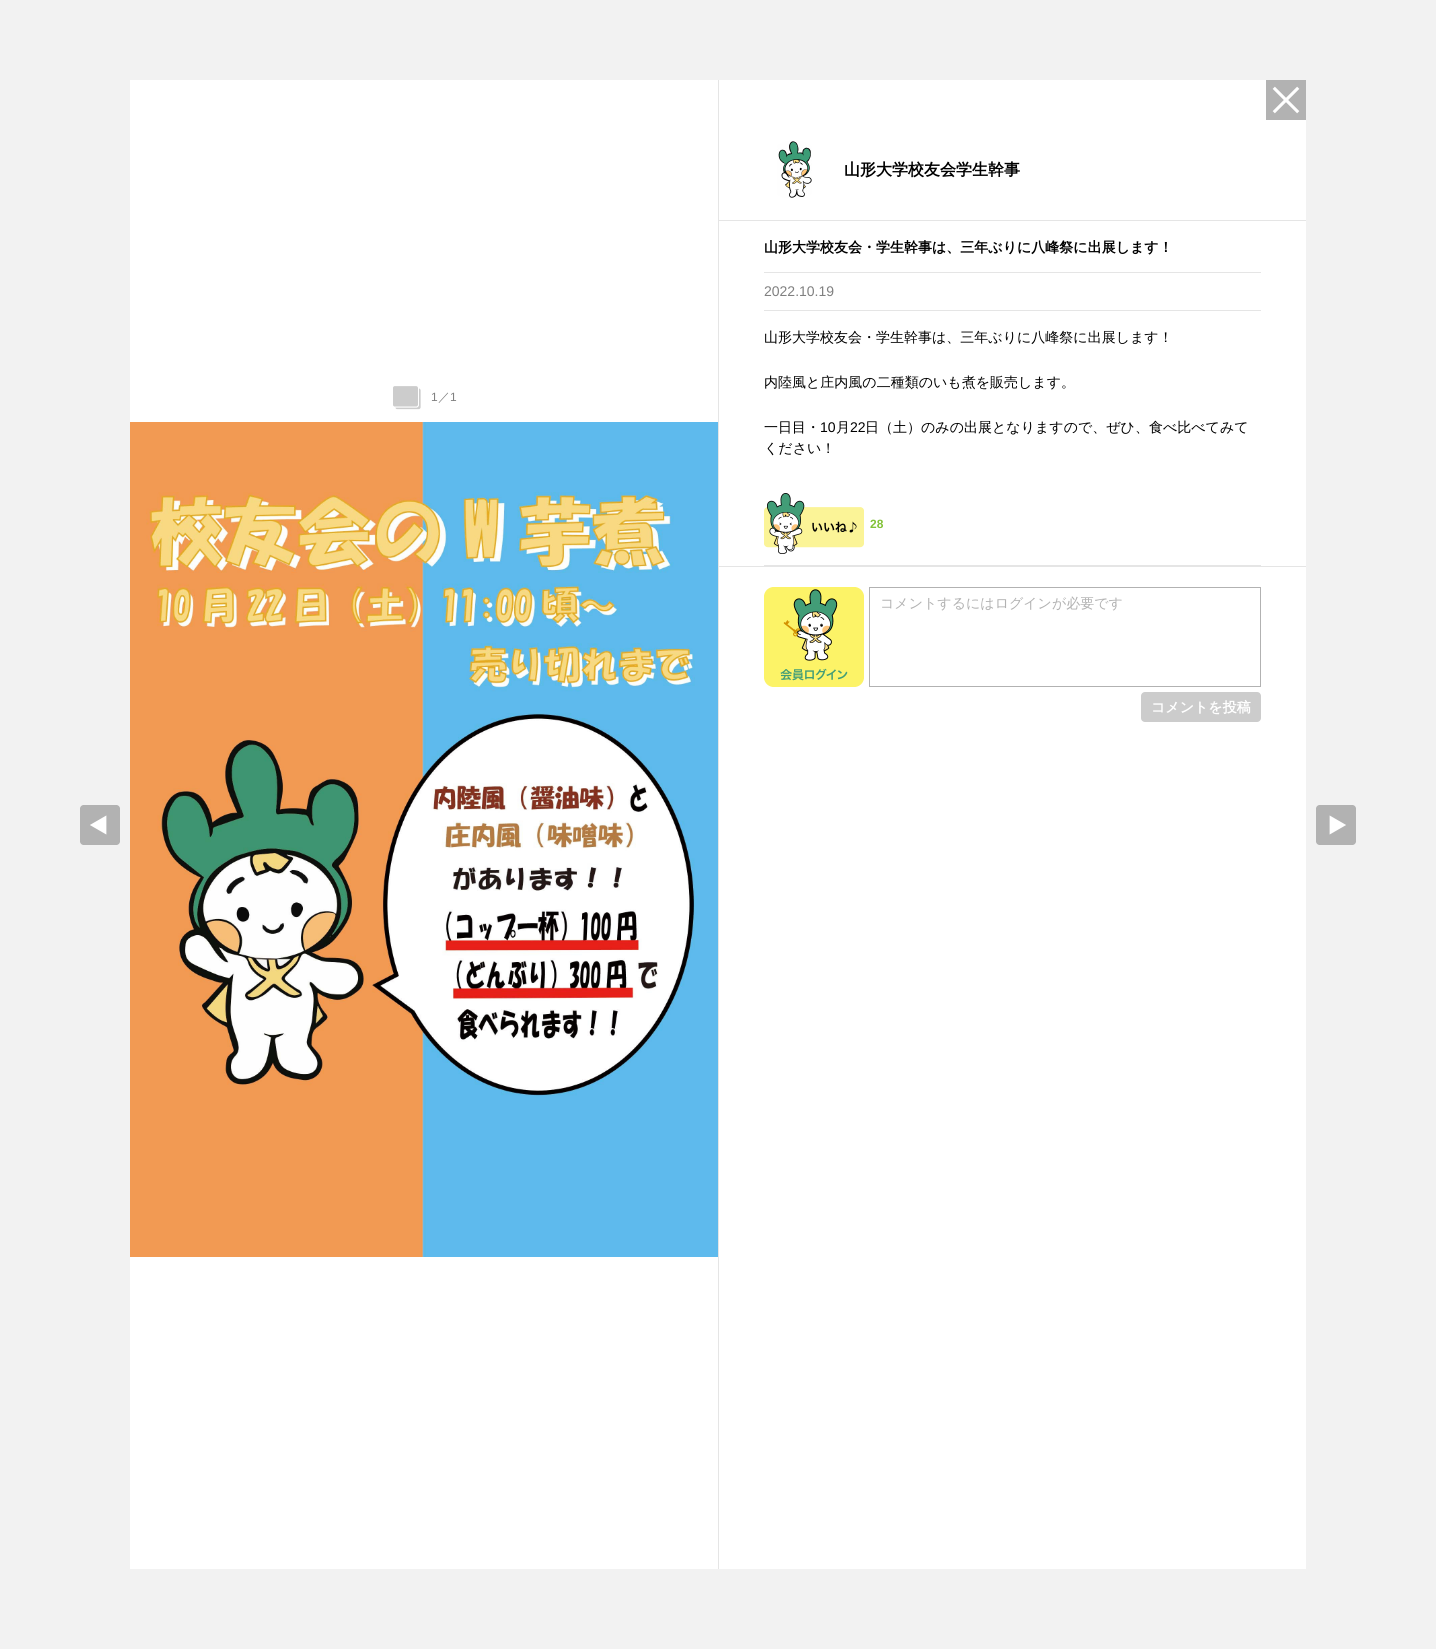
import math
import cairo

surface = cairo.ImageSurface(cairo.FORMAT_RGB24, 1436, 1649)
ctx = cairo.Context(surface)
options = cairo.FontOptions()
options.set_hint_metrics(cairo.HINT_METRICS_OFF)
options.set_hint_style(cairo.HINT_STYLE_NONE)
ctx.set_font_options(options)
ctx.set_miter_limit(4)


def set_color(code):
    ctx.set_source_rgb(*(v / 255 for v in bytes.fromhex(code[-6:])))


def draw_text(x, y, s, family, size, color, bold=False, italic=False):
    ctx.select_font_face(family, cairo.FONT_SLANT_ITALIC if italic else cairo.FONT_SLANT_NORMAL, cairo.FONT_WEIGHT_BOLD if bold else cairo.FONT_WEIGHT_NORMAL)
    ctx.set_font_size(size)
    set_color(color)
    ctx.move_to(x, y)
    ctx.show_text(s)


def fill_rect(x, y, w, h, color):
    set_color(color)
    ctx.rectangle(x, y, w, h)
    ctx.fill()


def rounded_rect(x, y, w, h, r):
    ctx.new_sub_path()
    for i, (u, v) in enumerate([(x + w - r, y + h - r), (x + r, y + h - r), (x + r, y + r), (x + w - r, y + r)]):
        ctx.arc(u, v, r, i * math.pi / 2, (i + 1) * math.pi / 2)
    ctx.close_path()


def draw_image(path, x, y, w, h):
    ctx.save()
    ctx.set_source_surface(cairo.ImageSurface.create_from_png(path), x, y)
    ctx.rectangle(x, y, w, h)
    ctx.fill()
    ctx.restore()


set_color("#f2f2f2")
ctx.paint()
fill_rect(130, 80, 1176, 1489, "#ffffff")
draw_image("assets/img1.png", 1266, 80, 40, 40)
draw_image("assets/img2.png", 393, 386, 28, 24)
draw_text(431, 401, "1", "Liberation Sans", 12, "#808080")
draw_text(438, 401, "／", "WenQuanYi Zen Hei Medium", 12, "#808080")
draw_text(450, 401, "1", "Liberation Sans", 12, "#808080")
draw_image("assets/img3.png", 130, 422, 588, 835)
fill_rect(718, 80, 1, 1489, "#e5e5e5")
fill_rect(719, 220, 587, 1, "#e5e5e5")
draw_image("assets/img4.png", 777, 140, 35, 58)
draw_text(844, 175, "山形大学校友会学生幹事", "WenQuanYi Zen Hei", 16, "#000000", bold=True)
fill_rect(764, 272, 497, 1, "#e5e5e5")
draw_text(764, 252, "山形大学校友会・学生幹事は、三年ぶりに八峰祭に出展します！", "WenQuanYi Zen Hei", 14, "#000000", bold=True)
fill_rect(764, 310, 497, 1, "#e5e5e5")
draw_text(764, 296, "2022.10.19", "Liberation Sans", 14, "#808080")
draw_text(764, 342, "山形大学校友会・学生幹事は、三年ぶりに八峰祭に出展します！", "WenQuanYi Zen Hei Medium", 14, "#000000")
draw_text(764, 387, "内陸風と庄内風の二種類のいも煮を販売します。", "WenQuanYi Zen Hei Medium", 14, "#000000")
draw_text(764, 432, "一日目・", "WenQuanYi Zen Hei Medium", 14, "#000000")
draw_text(820, 432, "10", "Liberation Sans", 14, "#000000")
draw_text(836, 432, "月", "WenQuanYi Zen Hei Medium", 14, "#000000")
draw_text(850, 432, "22", "Liberation Sans", 14, "#000000")
draw_text(865, 432, "日（土）のみの出展となりますので、ぜひ、食べ比べてみて", "WenQuanYi Zen Hei Medium", 14, "#000000")
draw_text(764, 453, "ください！", "WenQuanYi Zen Hei Medium", 14, "#000000")
fill_rect(764, 565, 497, 1, "#e5e5e5")
draw_image("assets/img5.png", 764, 493, 100, 61)
draw_text(870, 528, "28", "Liberation Sans", 12, "#82c238", bold=True)
fill_rect(719, 566, 587, 1, "#e5e5e5")
draw_image("assets/img6.png", 764, 587, 100, 100)
ctx.rectangle(869.5, 587.5, 391, 99)
set_color("#b2b2b2")
ctx.set_line_width(1)
ctx.stroke()
draw_text(880, 608, "コメントするにはログインが必要です", "WenQuanYi Zen Hei Medium", 14, "#b2b2b2")
set_color("#cccccc")
rounded_rect(1141, 692, 120, 30, 4)
ctx.fill()
draw_text(1151, 712, "コメントを投稿", "WenQuanYi Zen Hei", 14, "#ffffff", bold=True)
draw_image("assets/img7.png", 80, 805, 40, 40)
draw_image("assets/img8.png", 1316, 805, 40, 40)
surface.write_to_png("output.png")
